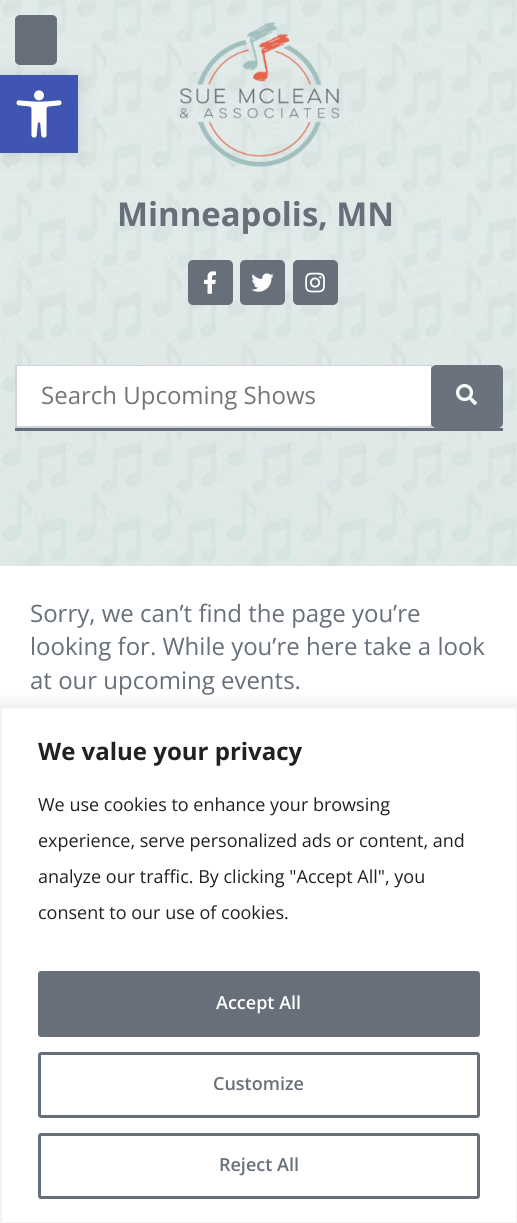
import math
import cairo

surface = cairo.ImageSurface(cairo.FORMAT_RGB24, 517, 1223)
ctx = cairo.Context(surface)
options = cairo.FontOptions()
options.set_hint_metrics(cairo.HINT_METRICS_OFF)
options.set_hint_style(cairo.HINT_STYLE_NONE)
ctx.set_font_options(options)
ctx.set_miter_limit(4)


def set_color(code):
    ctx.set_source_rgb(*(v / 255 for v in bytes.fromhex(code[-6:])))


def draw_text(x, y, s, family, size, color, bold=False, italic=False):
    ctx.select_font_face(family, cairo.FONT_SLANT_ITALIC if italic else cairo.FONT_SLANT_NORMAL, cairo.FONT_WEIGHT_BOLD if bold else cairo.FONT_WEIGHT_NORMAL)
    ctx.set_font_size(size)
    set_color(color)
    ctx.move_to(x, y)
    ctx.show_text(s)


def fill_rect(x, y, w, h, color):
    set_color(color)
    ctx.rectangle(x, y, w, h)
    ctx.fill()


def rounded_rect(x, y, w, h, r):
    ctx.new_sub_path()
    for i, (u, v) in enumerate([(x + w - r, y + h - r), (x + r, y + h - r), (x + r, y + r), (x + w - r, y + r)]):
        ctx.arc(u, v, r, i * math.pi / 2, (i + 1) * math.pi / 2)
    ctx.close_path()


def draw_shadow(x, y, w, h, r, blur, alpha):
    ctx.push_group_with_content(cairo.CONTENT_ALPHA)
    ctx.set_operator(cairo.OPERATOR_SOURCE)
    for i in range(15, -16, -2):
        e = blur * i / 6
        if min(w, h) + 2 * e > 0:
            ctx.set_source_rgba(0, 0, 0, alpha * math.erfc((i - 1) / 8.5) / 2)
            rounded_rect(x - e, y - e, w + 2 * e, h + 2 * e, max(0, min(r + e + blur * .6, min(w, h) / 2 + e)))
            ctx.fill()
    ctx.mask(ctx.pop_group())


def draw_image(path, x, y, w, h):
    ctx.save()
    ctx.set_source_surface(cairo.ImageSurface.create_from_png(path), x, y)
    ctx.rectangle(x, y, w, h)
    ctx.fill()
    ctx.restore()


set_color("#ffffff")
ctx.paint()
draw_image("assets/img1.png", 0, 0, 517, 566)
set_color("#67707a")
rounded_rect(15, 15, 42, 50, 5)
ctx.fill()
set_color("#000000")
draw_shadow(0, 75, 78, 78, 0, 7.5, 0.1)
fill_rect(0, 75, 78, 78, "#4054b2")
draw_image("assets/img2.png", 16, 90, 46, 48)
draw_image("assets/img3.png", 180, 22, 159, 145)
draw_text(117, 226, "Minneapolis, MN", "Open Sans", 32.9, "#67707a", bold=True)
rounded_rect(188, 260, 45, 45, 5)
ctx.fill()
draw_image("assets/img4.png", 204, 271, 12, 23)
rounded_rect(240, 260, 45, 45, 5)
ctx.fill()
draw_image("assets/img5.png", 251, 273, 23, 19)
rounded_rect(293, 260, 45, 45, 5)
ctx.fill()
draw_image("assets/img6.png", 305, 272, 20, 21)
fill_rect(15, 428, 488, 3, "#67707a")
fill_rect(17, 425, 413, 1, "#ffffff")
ctx.rectangle(16, 366, 415, 61)
set_color("#ced4da")
ctx.stroke()
fill_rect(17, 366, 414, 59, "#ffffff")
draw_text(41, 404, "Search Upcoming Shows", "Open Sans", 24, "#757575")
set_color("#69727d")
rounded_rect(432, 366, 70, 61, 4)
ctx.fill_preserve()
ctx.stroke()
draw_image("assets/img7.png", 456, 384, 21, 21)
draw_text(30, 622, "Sorry, we can’t find the page you’re", "Open Sans", 24, "#67707a")
draw_text(30, 655, "looking for. While you’re here take a look", "Open Sans", 24, "#67707a")
draw_text(30, 689, "at our upcoming events.", "Open Sans", 24, "#67707a")
set_color("#acabab")
draw_shadow(0, 705, 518, 518, 0, 7.5, 0.3)
set_color("#ffffff")
ctx.rectangle(1, 708, 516, 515)
ctx.fill_preserve()
set_color("#f4f4f4")
ctx.stroke()
draw_text(38, 760, "We value your privacy", "Open Sans", 24, "#212121", bold=True)
draw_text(38, 811, "We use cookies to enhance your browsing", "Open Sans", 18, "#212121")
draw_text(38, 847, "experience, serve personalized ads or content, and", "Open Sans", 18, "#212121")
draw_text(38, 883, "analyze our traffic. By clicking \"Accept All\", you", "Open Sans", 18, "#212121")
draw_text(38, 919, "consent to our use of cookies.", "Open Sans", 18, "#212121")
set_color("#67707a")
rounded_rect(39.5, 972.5, 439, 63, 1.5)
ctx.fill_preserve()
ctx.set_line_width(3)
ctx.stroke()
draw_text(216, 1009, "Accept All", "Open Sans SemiBold", 18, "#ffffff")
rounded_rect(39.5, 1053.5, 439, 63, 1.5)
set_color("#67707a")
ctx.stroke()
draw_text(213, 1090, "Customize", "Open Sans SemiBold", 18, "#67707a")
rounded_rect(39.5, 1134.5, 439, 63, 1.5)
ctx.stroke()
draw_text(219, 1171, "Reject All", "Open Sans SemiBold", 18, "#67707a")
surface.write_to_png("output.png")
